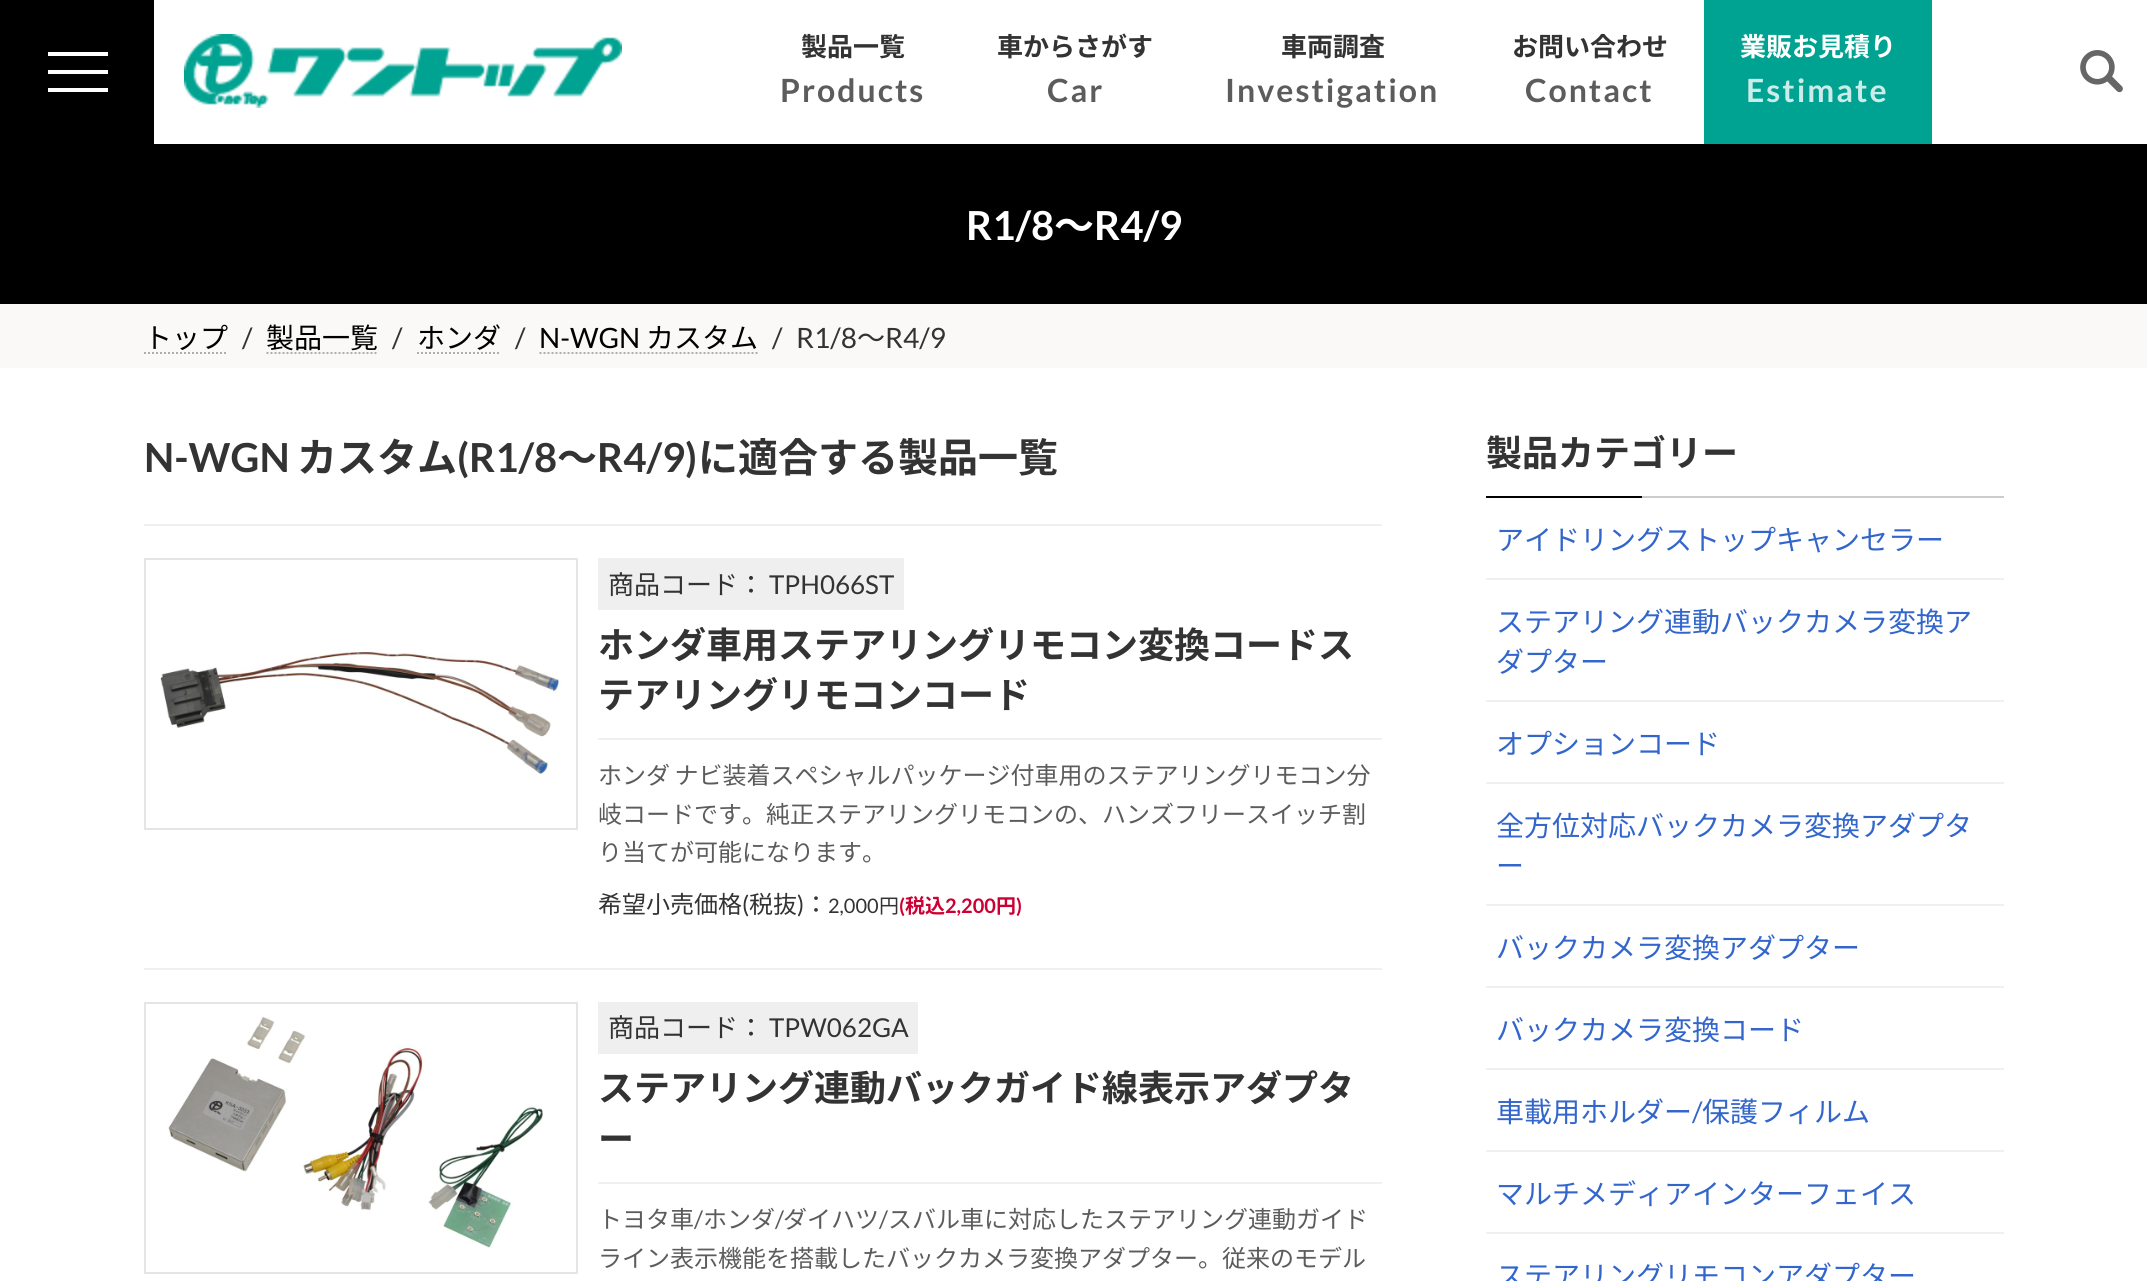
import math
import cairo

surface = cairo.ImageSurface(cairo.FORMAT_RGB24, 2147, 1281)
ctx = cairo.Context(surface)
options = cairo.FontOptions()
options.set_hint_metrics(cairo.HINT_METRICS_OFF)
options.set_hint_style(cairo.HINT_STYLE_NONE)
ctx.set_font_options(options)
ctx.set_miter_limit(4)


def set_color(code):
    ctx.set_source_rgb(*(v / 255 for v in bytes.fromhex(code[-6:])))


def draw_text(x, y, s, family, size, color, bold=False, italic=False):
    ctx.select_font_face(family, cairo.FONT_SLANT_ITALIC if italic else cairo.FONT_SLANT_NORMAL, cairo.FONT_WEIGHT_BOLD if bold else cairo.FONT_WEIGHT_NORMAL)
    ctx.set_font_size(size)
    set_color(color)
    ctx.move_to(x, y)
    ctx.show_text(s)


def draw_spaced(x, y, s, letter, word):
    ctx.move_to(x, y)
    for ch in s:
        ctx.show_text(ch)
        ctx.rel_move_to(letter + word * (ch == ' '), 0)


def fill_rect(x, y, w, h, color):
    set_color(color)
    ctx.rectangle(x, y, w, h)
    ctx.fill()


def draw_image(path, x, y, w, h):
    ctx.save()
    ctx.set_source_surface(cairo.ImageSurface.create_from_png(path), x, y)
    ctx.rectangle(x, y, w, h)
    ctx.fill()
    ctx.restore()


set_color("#ffffff")
ctx.paint()
fill_rect(0, 0, 154, 144, "#000000")
fill_rect(48, 52, 60, 4, "#ffffff")
fill_rect(48, 70, 60, 4, "#ffffff")
fill_rect(48, 88, 60, 4, "#ffffff")
draw_image("assets/img1.png", 184, 34, 438, 74)
draw_text(801, 56, "製品一覧", "Noto Sans JP", 26, "#333333", bold=True)
ctx.select_font_face("Lato", cairo.FONT_SLANT_NORMAL, cairo.FONT_WEIGHT_BOLD)
ctx.set_font_size(32)
set_color("#5c5c5c")
draw_spaced(780, 102, "Products", 2, 0)
draw_text(997, 56, "車からさがす", "Noto Sans JP", 26, "#333333", bold=True)
ctx.select_font_face("Lato", cairo.FONT_SLANT_NORMAL, cairo.FONT_WEIGHT_BOLD)
ctx.set_font_size(32)
set_color("#5c5c5c")
draw_spaced(1047, 102, "Car", 2, 0)
draw_text(1281, 56, "車両調査", "Noto Sans JP", 26, "#333333", bold=True)
ctx.select_font_face("Lato", cairo.FONT_SLANT_NORMAL, cairo.FONT_WEIGHT_BOLD)
ctx.set_font_size(32)
set_color("#5c5c5c")
draw_spaced(1225, 102, "Investigation", 2, 0)
draw_text(1512, 56, "お問い合わせ", "Noto Sans JP", 26, "#333333", bold=True)
ctx.select_font_face("Lato", cairo.FONT_SLANT_NORMAL, cairo.FONT_WEIGHT_BOLD)
ctx.set_font_size(32)
set_color("#5c5c5c")
draw_spaced(1525, 102, "Contact", 2, 0)
fill_rect(1704, 0, 228, 144, "#00a291")
draw_text(1740, 56, "業販お見積り", "Noto Sans JP", 26, "#ffffff", bold=True)
ctx.select_font_face("Lato", cairo.FONT_SLANT_NORMAL, cairo.FONT_WEIGHT_BOLD)
ctx.set_font_size(32)
set_color("#ccece9")
draw_spaced(1746, 102, "Estimate", 2, 0)
draw_image("assets/img2.png", 2080, 50, 43, 43)
fill_rect(0, 144, 2147, 160, "#000000")
draw_text(966, 240, "R1/8", "Lato", 40, "#ffffff", bold=True)
draw_text(1054, 240, "～", "Noto Sans JP", 40, "#ffffff", bold=True)
draw_text(1094, 240, "R4/9", "Lato", 40, "#ffffff", bold=True)
fill_rect(0, 304, 2147, 64, "#faf9f7")
draw_text(144, 348, "トップ", "Noto Sans JP", 28, "#000000")
ctx.new_path()
ctx.move_to(144, 353)
ctx.line_to(228, 353)
set_color("#afaead")
ctx.set_dash([2, 2])
ctx.stroke()
draw_text(242, 348, "/", "Lato", 28, "#333333")
draw_text(266, 348, "製品一覧", "Noto Sans JP", 28, "#000000")
ctx.new_path()
ctx.move_to(266.5, 353)
ctx.line_to(378.5, 353)
set_color("#afaead")
ctx.stroke()
draw_text(392, 348, "/", "Lato", 28, "#333333")
draw_text(417, 348, "ホンダ", "Noto Sans JP", 28, "#000000")
ctx.new_path()
ctx.move_to(417, 353)
ctx.line_to(501, 353)
set_color("#afaead")
ctx.stroke()
draw_text(515, 348, "/", "Lato", 28, "#333333")
draw_text(539, 348, "N-WGN", "Lato", 28, "#000000")
ctx.new_path()
ctx.move_to(539.5, 353)
ctx.line_to(758, 353)
set_color("#afaead")
ctx.stroke()
draw_text(646, 348, "カスタム", "Noto Sans JP", 28, "#000000")
draw_text(772, 348, "/", "Lato", 28, "#333333")
draw_text(796, 348, "R1/8", "Lato", 28, "#333333")
draw_text(857, 348, "～", "Noto Sans JP", 28, "#333333")
draw_text(885, 348, "R4/9", "Lato", 28, "#333333")
draw_text(144, 472, "N-WGN", "Lato", 40, "#333333", bold=True)
draw_text(297, 472, "カスタム", "Noto Sans JP", 40, "#333333", bold=True)
draw_text(457, 472, "(R1/8", "Lato", 40, "#333333", bold=True)
draw_text(557, 472, "～", "Noto Sans JP", 40, "#333333", bold=True)
draw_text(597, 472, "R4/9)", "Lato", 40, "#333333", bold=True)
draw_text(698, 472, "に適合する製品一覧", "Noto Sans JP", 40, "#333333", bold=True)
fill_rect(144, 524, 1238, 2, "#f0f0f0")
fill_rect(144, 968, 1238, 2, "#f0f0f0")
draw_image("assets/img3.png", 160, 647, 403, 128)
ctx.rectangle(145, 559, 432, 270)
set_color("#e5e5e5")
ctx.set_dash([])
ctx.stroke()
fill_rect(598, 558, 306, 52, "#efefef")
draw_text(608, 594, "商品コード：", "Noto Sans JP", 26, "#333333")
draw_text(769, 594, "TPH066ST", "Lato", 26, "#333333")
fill_rect(598, 738, 784, 2, "#f0f0f0")
draw_text(598, 658, "ホンダ車用ステアリングリモコン変換コードス", "Noto Sans JP", 36, "#333333", bold=True)
draw_text(598, 708, "テアリングリモコンコード", "Noto Sans JP", 36, "#333333", bold=True)
ctx.select_font_face("Noto Sans JP")
ctx.set_font_size(24)
set_color("#5c5c5c")
draw_spaced(598, 784, "ホンダ ナビ装着スペシャルパッケージ付車用のステアリングリモコン分", 0, -1)
draw_text(598, 823, "岐コードです。純正ステアリングリモコンの、ハンズフリースイッチ割", "Noto Sans JP", 24, "#5c5c5c")
draw_text(598, 861, "り当てが可能になります。", "Noto Sans JP", 24, "#5c5c5c")
draw_text(598, 913, "希望小売価格", "Noto Sans JP", 24, "#333333")
draw_text(742, 913, "(", "Lato", 24, "#333333")
draw_text(749, 913, "税抜", "Noto Sans JP", 24, "#333333")
draw_text(797, 913, ")", "Lato", 24, "#333333")
draw_text(804, 913, "：", "Noto Sans JP", 24, "#333333")
draw_text(828, 913, "2,000", "Lato", 20, "#333333")
draw_text(879, 913, "円", "Noto Sans JP", 20, "#333333")
draw_text(899, 913, "(", "Lato", 20, "#cc0033", bold=True)
draw_text(905, 913, "税込", "Noto Sans JP", 20, "#cc0033", bold=True)
draw_text(945, 913, "2,200", "Lato", 20, "#cc0033", bold=True)
draw_text(996, 913, "円", "Noto Sans JP", 20, "#cc0033", bold=True)
draw_text(1016, 913, ")", "Lato", 20, "#cc0033", bold=True)
draw_image("assets/img4.png", 168, 1017, 375, 232)
ctx.rectangle(145, 1003, 432, 270)
set_color("#e5e5e5")
ctx.stroke()
fill_rect(598, 1002, 320, 52, "#efefef")
draw_text(608, 1037, "商品コード：", "Noto Sans JP", 26, "#333333")
draw_text(769, 1037, "TPW062GA", "Lato", 26, "#333333")
fill_rect(598, 1182, 784, 2, "#f0f0f0")
draw_text(598, 1101, "ステアリング連動バックガイド線表示アダプタ", "Noto Sans JP", 36, "#333333", bold=True)
draw_text(598, 1152, "ー", "Noto Sans JP", 36, "#333333", bold=True)
draw_text(598, 1228, "トヨタ車", "Noto Sans JP", 24, "#5c5c5c")
draw_text(694, 1228, "/", "Lato", 24, "#5c5c5c")
draw_text(703, 1228, "ホンダ", "Noto Sans JP", 24, "#5c5c5c")
draw_text(775, 1228, "/", "Lato", 24, "#5c5c5c")
draw_text(783, 1228, "ダイハツ", "Noto Sans JP", 24, "#5c5c5c")
draw_text(879, 1228, "/", "Lato", 24, "#5c5c5c")
draw_text(888, 1228, "スバル車に対応したステアリング連動ガイド", "Noto Sans JP", 24, "#5c5c5c")
draw_text(598, 1267, "ライン表示機能を搭載したバックカメラ変換アダプター。従来のモデル", "Noto Sans JP", 24, "#5c5c5c")
fill_rect(1642, 496, 362, 2, "#cccccc")
draw_text(1486, 466, "製品カテゴリー", "Noto Sans JP", 36, "#333333", bold=True)
fill_rect(1486, 496, 156, 2, "#000000")
fill_rect(1486, 578, 518, 2, "#f0f0f0")
draw_text(1496, 550, "アイドリングストップキャンセラー", "Noto Sans JP", 28, "#3366cc")
fill_rect(1486, 700, 518, 2, "#f0f0f0")
draw_text(1496, 632, "ステアリング連動バックカメラ変換ア", "Noto Sans JP", 28, "#3366cc")
draw_text(1496, 672, "ダプター", "Noto Sans JP", 28, "#3366cc")
fill_rect(1486, 782, 518, 2, "#f0f0f0")
draw_text(1496, 754, "オプションコード", "Noto Sans JP", 28, "#3366cc")
fill_rect(1486, 904, 518, 2, "#f0f0f0")
draw_text(1496, 836, "全方位対応バックカメラ変換アダプタ", "Noto Sans JP", 28, "#3366cc")
draw_text(1496, 876, "ー", "Noto Sans JP", 28, "#3366cc")
fill_rect(1486, 986, 518, 2, "#f0f0f0")
draw_text(1496, 958, "バックカメラ変換アダプター", "Noto Sans JP", 28, "#3366cc")
fill_rect(1486, 1068, 518, 2, "#f0f0f0")
draw_text(1496, 1040, "バックカメラ変換コード", "Noto Sans JP", 28, "#3366cc")
fill_rect(1486, 1150, 518, 2, "#f0f0f0")
draw_text(1496, 1122, "車載用ホルダー", "Noto Sans JP", 28, "#3366cc")
draw_text(1692, 1122, "/", "Lato", 28, "#3366cc")
draw_text(1702, 1122, "保護フィルム", "Noto Sans JP", 28, "#3366cc")
fill_rect(1486, 1232, 518, 2, "#f0f0f0")
draw_text(1496, 1204, "マルチメディアインターフェイス", "Noto Sans JP", 28, "#3366cc")
draw_text(1496, 1286, "ステアリングリモコンアダプター", "Noto Sans JP", 28, "#3366cc")
surface.write_to_png("output.png")
